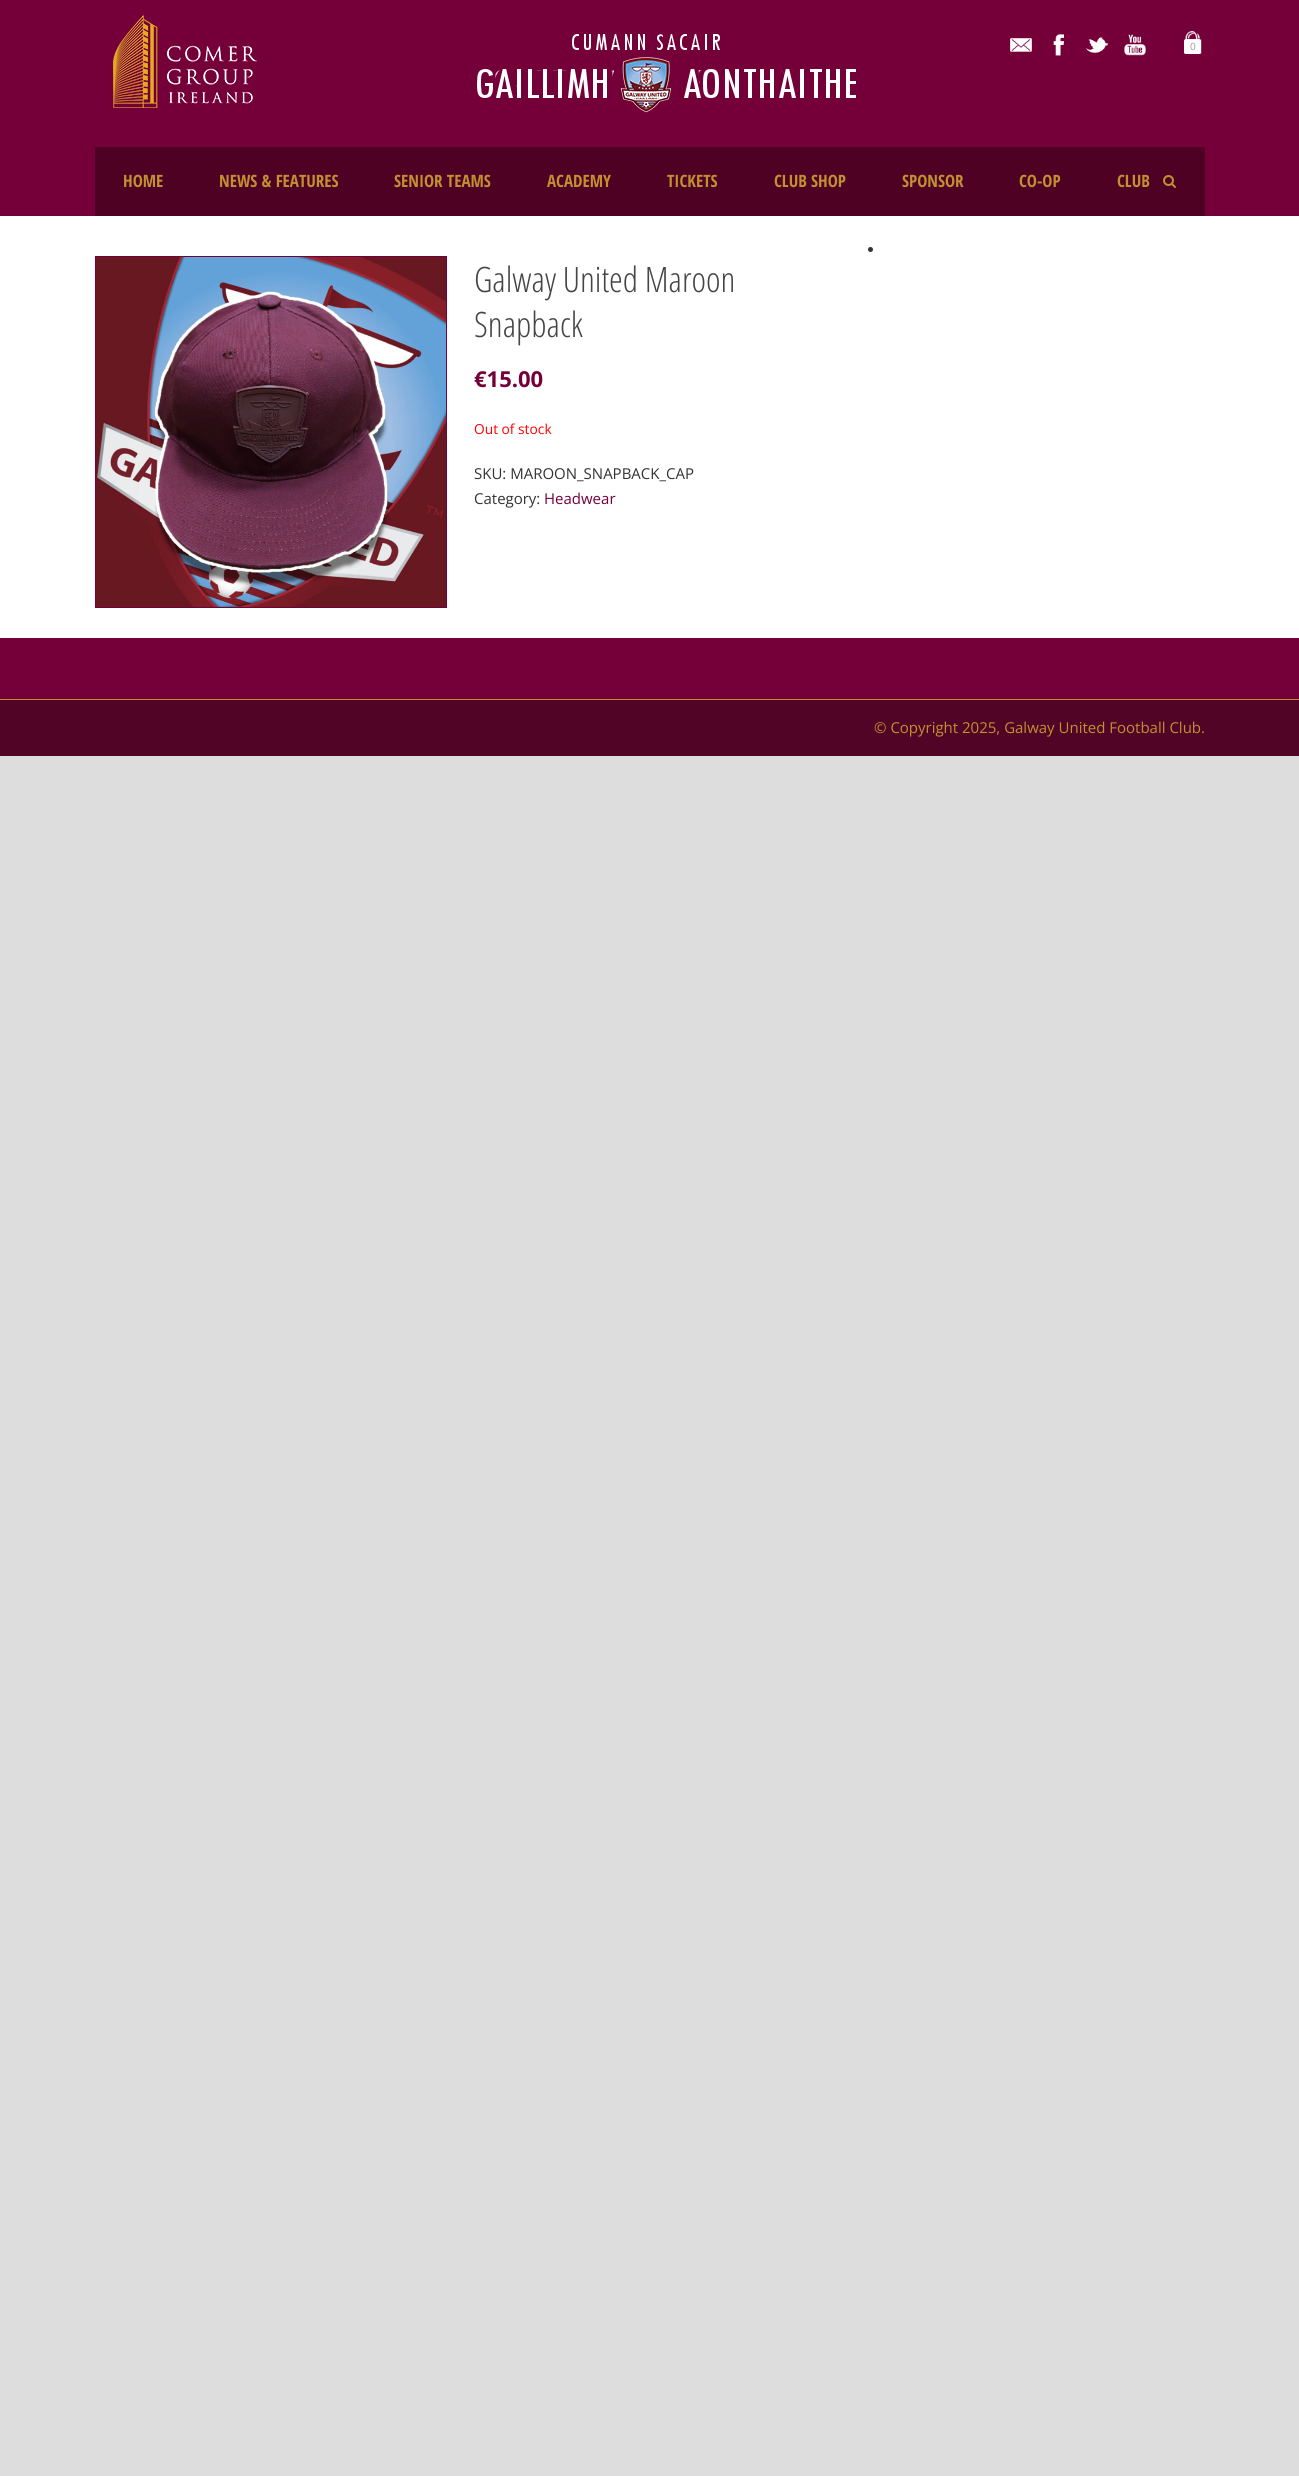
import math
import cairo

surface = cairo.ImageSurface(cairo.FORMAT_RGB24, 1299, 2476)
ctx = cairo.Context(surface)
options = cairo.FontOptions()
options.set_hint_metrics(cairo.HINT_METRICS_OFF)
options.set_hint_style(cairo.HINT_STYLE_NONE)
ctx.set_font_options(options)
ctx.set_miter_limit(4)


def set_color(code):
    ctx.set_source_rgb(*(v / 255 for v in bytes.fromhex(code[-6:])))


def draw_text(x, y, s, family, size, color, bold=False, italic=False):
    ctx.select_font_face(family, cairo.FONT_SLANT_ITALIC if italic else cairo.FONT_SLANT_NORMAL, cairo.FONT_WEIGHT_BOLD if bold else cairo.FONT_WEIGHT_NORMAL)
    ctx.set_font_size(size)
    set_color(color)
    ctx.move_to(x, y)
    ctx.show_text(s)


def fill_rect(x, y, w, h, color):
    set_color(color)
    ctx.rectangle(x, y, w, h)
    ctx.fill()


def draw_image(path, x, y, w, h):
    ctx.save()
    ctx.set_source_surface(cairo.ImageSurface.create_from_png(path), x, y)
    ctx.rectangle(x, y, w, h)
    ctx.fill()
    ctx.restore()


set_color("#dddddd")
ctx.paint()
fill_rect(0, 216, 1299, 422, "#ffffff")
fill_rect(0, 0, 1299, 216, "#750039")
draw_image("assets/img1.png", 113, 15, 144, 93)
draw_image("assets/img2.png", 1010, 38, 22, 14)
draw_image("assets/img3.png", 1053, 34, 11, 22)
draw_image("assets/img4.png", 1086, 37, 22, 17)
draw_image("assets/img5.png", 1124, 34, 22, 22)
draw_image("assets/img6.png", 1184, 31, 18, 23)
draw_text(1190, 50, "0", "Open Sans", 10, "#999999")
draw_image("assets/img7.png", 477, 34, 379, 79)
fill_rect(95, 147, 1110, 69, "#4e0123")
draw_text(123, 187, "HOME", "Open Sans Condensed", 17, "#c19030", bold=True)
draw_text(219, 187, "NEWS & FEATURES", "Open Sans Condensed", 17, "#c19030", bold=True)
draw_text(394, 187, "SENIOR TEAMS", "Open Sans Condensed", 17, "#c19030", bold=True)
draw_text(547, 187, "ACADEMY", "Open Sans Condensed", 17, "#c19030", bold=True)
draw_text(667, 187, "TICKETS", "Open Sans Condensed", 17, "#c19030", bold=True)
draw_text(774, 187, "CLUB SHOP", "Open Sans Condensed", 17, "#c19030", bold=True)
draw_text(902, 187, "SPONSOR", "Open Sans Condensed", 17, "#c19030", bold=True)
draw_text(1019, 187, "CO-OP", "Open Sans Condensed", 17, "#c19030", bold=True)
draw_text(1117, 187, "CLUB", "Open Sans Condensed", 17, "#c19030", bold=True)
draw_image("assets/img8.png", 1163, 175, 13, 13)
set_color("#333333")
ctx.arc(870.5, 249.5, 2.5, 0, 2 * math.pi)
ctx.fill()
ctx.rectangle(95.5, 256.5, 351, 351)
set_color("#750039")
ctx.set_line_width(1)
ctx.stroke()
draw_image("assets/img9.png", 96, 257, 350, 350)
draw_text(474, 292, "Galway United Maroon", "Open Sans Condensed Light", 35, "#454545")
draw_text(474, 337, "Snapback", "Open Sans Condensed Light", 35, "#454545")
draw_text(474, 387, "€15.00", "Open Sans", 22, "#750039", bold=True)
draw_text(474, 434, "Out of stock", "Open Sans", 13.75, "#ff0000")
draw_text(474, 479, "SKU: MAROON_SNAPBACK_CAP", "Open Sans", 15, "#333333")
draw_text(474, 504, "Category:", "Open Sans", 15, "#333333")
draw_text(544, 504, "Headwear", "Open Sans", 15, "#750039")
fill_rect(0, 638, 1299, 61, "#750039")
fill_rect(0, 700, 1299, 56, "#520427")
fill_rect(0, 699, 1299, 1, "#c19030")
draw_text(874, 733, "© Copyright 2025, Galway United Football Club.", "Open Sans", 15, "#c19030")
surface.write_to_png("output.png")
